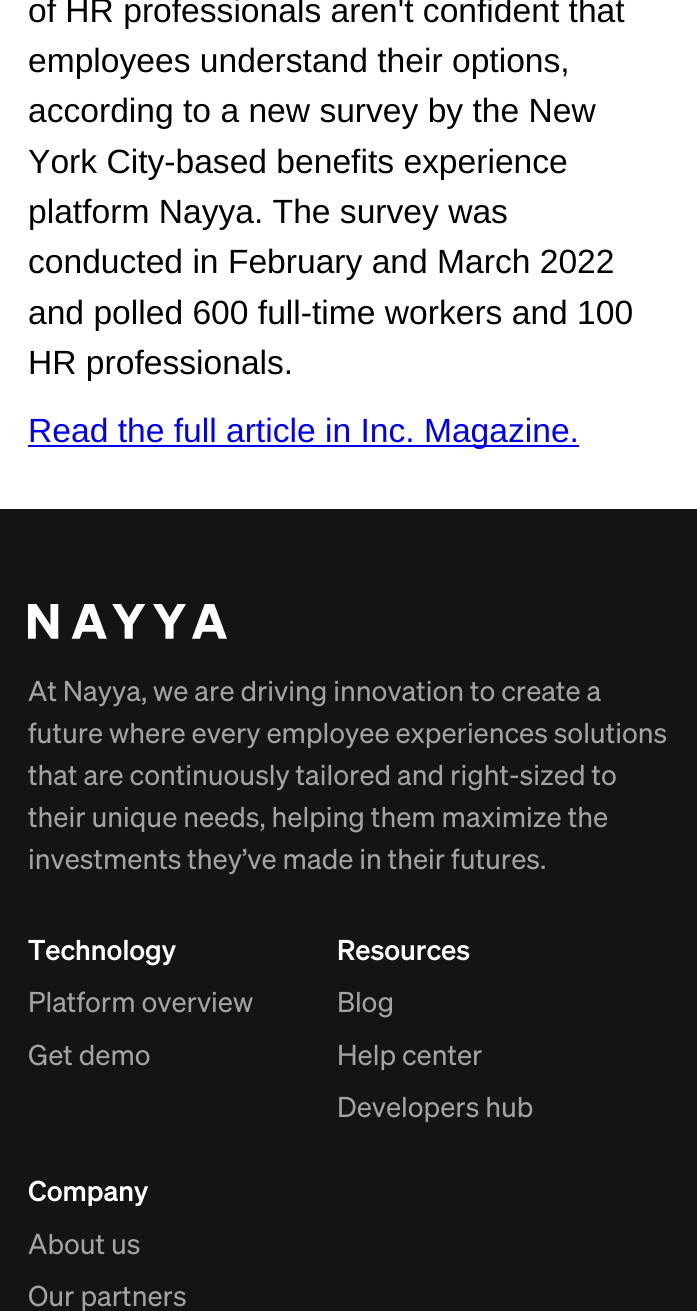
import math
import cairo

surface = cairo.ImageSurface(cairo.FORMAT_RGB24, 697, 1311)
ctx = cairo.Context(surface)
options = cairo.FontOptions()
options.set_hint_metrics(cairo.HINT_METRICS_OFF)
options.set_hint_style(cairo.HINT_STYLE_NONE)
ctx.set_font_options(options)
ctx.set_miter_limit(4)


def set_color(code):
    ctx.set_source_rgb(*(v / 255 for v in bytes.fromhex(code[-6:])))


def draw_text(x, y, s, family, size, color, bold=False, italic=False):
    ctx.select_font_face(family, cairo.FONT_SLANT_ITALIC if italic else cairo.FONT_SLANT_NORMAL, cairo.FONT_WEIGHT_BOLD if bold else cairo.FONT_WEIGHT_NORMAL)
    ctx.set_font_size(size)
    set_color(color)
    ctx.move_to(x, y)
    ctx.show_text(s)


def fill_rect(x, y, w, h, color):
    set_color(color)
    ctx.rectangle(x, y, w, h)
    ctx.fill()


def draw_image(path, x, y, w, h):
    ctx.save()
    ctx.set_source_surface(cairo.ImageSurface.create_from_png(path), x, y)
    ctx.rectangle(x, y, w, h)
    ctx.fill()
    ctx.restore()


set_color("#ffffff")
ctx.paint()
draw_text(28, 22, "of HR professionals aren't confident that", "Liberation Sans", 33.6, "#000000")
draw_text(28, 72, "employees understand their options,", "Liberation Sans", 33.6, "#000000")
draw_text(28, 122, "according to a new survey by the New", "Liberation Sans", 33.6, "#000000")
draw_text(28, 173, "York City-based benefits experience", "Liberation Sans", 33.6, "#000000")
draw_text(28, 223, "platform Nayya. The survey was", "Liberation Sans", 33.6, "#000000")
draw_text(28, 273, "conducted in February and March 2022", "Liberation Sans", 33.6, "#000000")
draw_text(28, 324, "and polled 600 full-time workers and 100", "Liberation Sans", 33.6, "#000000")
draw_text(28, 374, "HR professionals.", "Liberation Sans", 33.6, "#000000")
fill_rect(28, 445, 551, 2, "#0000ee")
draw_text(28, 442, "Read the full article in Inc. Magazine.", "Liberation Sans", 33.6, "#0000ee")
fill_rect(0, 509, 697, 802, "#141414")
draw_image("assets/img1.png", 28, 604, 199, 35)
draw_text(28, 701, "At Nayya, we are driving innovation to create a", "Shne", 28, "#a3a3a3")
draw_text(28, 743, "future where every employee experiences solutions", "Shne", 28, "#a3a3a3")
draw_text(28, 785, "that are continuously tailored and right-sized to", "Shne", 28, "#a3a3a3")
draw_text(28, 827, "their unique needs, helping them maximize the", "Shne", 28, "#a3a3a3")
draw_text(28, 869, "investments they’ve made in their futures.", "Shne", 28, "#a3a3a3")
draw_text(28, 960, "Technology", "Shne Medium", 28, "#ffffff")
draw_text(28, 1012, "Platform overview", "Shne", 28, "#a3a3a3")
draw_text(28, 1065, "Get demo", "Shne", 28, "#a3a3a3")
draw_text(337, 960, "Resources", "Shne Medium", 28, "#ffffff")
draw_text(337, 1012, "Blog", "Shne", 28, "#a3a3a3")
draw_text(337, 1065, "Help center", "Shne", 28, "#a3a3a3")
draw_text(337, 1117, "Developers hub", "Shne", 28, "#a3a3a3")
draw_text(28, 1201, "Company", "Shne Medium", 28, "#ffffff")
draw_text(28, 1254, "About us", "Shne", 28, "#a3a3a3")
draw_text(28, 1306, "Our partners", "Shne", 28, "#a3a3a3")
surface.write_to_png("output.png")
